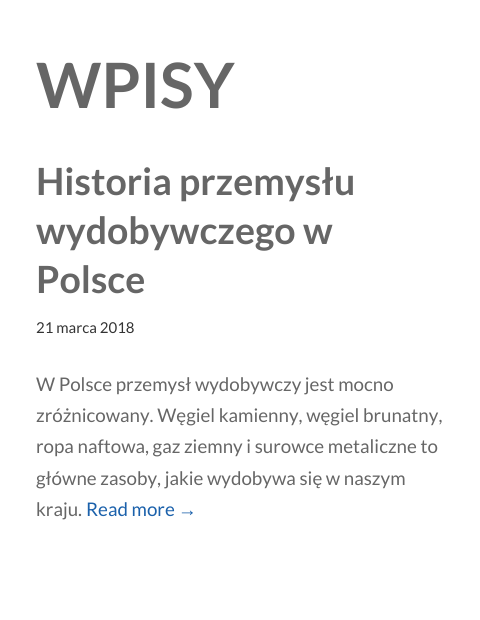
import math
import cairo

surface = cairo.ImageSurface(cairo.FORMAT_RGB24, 480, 620)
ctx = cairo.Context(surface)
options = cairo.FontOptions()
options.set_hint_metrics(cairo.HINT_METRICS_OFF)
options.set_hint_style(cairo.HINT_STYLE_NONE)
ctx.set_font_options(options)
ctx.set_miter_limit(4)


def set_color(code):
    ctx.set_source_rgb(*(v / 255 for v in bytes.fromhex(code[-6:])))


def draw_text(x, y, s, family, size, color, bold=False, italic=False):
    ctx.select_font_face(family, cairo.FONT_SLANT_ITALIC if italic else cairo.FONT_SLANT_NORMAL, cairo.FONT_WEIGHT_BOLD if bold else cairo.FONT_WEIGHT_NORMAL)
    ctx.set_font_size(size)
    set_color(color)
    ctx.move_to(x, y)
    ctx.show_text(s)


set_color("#ffffff")
ctx.paint()
draw_text(36, 108, "WPISY", "Lato", 62.5, "#666666", bold=True)
draw_text(36, 195, "Historia przemysłu", "Lato", 37.5, "#666666", bold=True)
draw_text(36, 244, "wydobywczego w", "Lato", 37.5, "#666666", bold=True)
draw_text(36, 293, "Polsce", "Lato", 37.5, "#666666", bold=True)
draw_text(36, 333, "21 marca 2018", "Lato", 15, "#333333")
draw_text(36, 391, "W Polsce przemysł wydobywczy jest mocno", "Lato", 18.75, "#666666")
draw_text(36, 422, "zróżnicowany. Węgiel kamienny, węgiel brunatny,", "Lato", 18.75, "#666666")
draw_text(36, 453, "ropa naftowa, gaz ziemny i surowce metaliczne to", "Lato", 18.75, "#666666")
draw_text(36, 485, "główne zasoby, jakie wydobywa się w naszym", "Lato", 18.75, "#666666")
draw_text(36, 516, "kraju.", "Lato", 18.75, "#666666")
draw_text(86, 516, "Read more", "Lato", 18.75, "#1b61ab")
draw_text(178, 516, "→", "Liberation Sans", 18.75, "#1b61ab")
surface.write_to_png("output.png")
